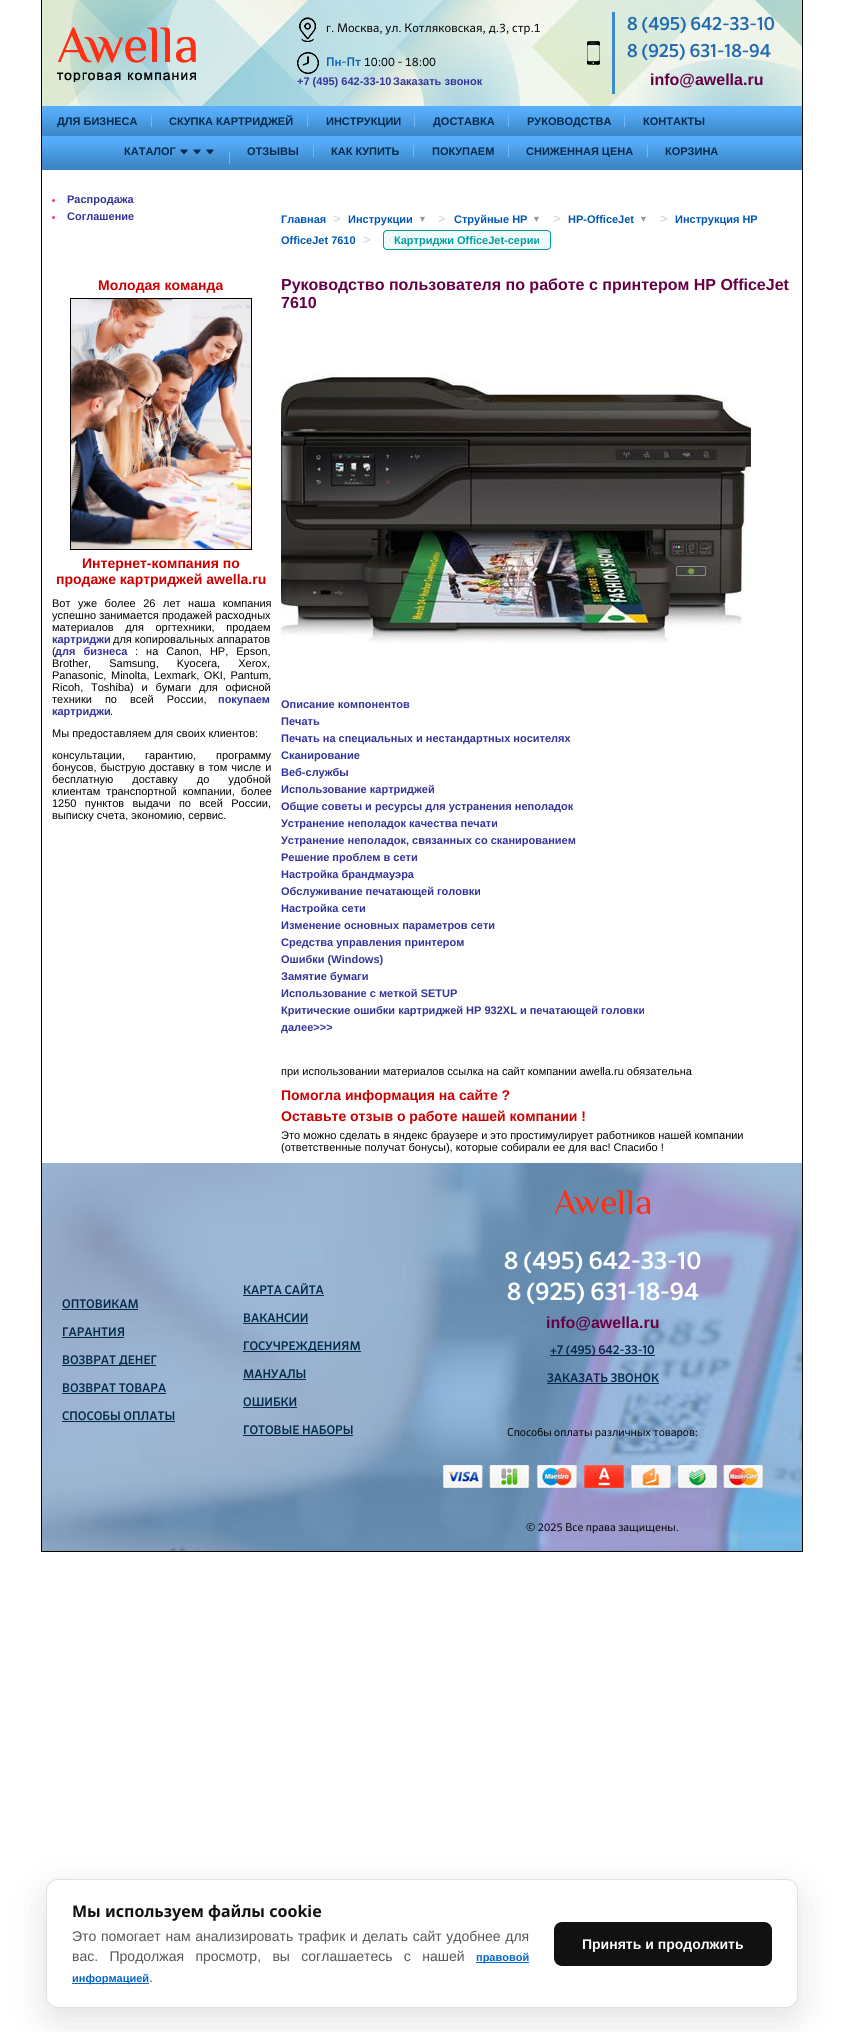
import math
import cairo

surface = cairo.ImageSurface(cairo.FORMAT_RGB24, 843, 2032)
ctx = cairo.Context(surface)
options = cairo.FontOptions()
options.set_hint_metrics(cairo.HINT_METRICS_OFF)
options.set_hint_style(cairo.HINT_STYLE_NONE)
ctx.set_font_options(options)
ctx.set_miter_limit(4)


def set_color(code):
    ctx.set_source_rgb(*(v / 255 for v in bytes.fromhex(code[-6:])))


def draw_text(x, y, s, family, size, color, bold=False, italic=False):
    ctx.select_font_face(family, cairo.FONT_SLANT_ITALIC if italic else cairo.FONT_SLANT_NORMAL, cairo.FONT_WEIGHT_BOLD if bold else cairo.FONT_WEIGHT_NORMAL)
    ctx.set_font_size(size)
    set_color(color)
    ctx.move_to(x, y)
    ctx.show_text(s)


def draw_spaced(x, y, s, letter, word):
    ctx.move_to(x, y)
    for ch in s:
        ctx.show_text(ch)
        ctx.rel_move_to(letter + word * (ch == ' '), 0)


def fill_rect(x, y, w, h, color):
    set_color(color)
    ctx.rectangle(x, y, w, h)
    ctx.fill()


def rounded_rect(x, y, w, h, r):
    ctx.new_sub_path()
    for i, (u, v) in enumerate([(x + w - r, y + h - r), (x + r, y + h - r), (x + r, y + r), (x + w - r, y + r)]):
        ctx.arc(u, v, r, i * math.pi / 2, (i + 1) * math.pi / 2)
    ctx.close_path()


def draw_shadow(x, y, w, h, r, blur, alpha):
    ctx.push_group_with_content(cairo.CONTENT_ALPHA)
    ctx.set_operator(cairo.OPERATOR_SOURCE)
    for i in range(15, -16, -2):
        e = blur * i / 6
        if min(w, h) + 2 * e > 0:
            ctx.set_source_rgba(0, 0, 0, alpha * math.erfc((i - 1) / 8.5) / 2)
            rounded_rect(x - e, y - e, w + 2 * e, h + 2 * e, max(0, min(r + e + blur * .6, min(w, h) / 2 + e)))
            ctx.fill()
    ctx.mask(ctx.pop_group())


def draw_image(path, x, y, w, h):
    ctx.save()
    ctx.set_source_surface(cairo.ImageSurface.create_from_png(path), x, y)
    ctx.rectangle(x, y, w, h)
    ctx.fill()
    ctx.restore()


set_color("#ffffff")
ctx.paint()
draw_image("assets/img1.png", 42, 0, 760, 106)
fill_rect(802, 0, 1, 1551, "#000000")
fill_rect(41, 0, 1, 1552, "#000000")
draw_image("assets/img2.png", 57, 27, 139, 55)
draw_image("assets/img3.png", 299, 17, 17, 25)
draw_text(326, 32, "г. Москва, ул. Котляковская, д.3, стр.1", "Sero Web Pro", 12, "#000000")
draw_image("assets/img4.png", 297, 52, 22, 22)
draw_text(326, 66, "Пн-Пт", "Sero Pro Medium", 12, "#0c61ad")
draw_text(364, 66, "10:00 - 18:00", "Sero Web Pro", 12, "#000000")
draw_text(297, 85, "+7 (495) 642-33-10", "Liberation Sans", 11, "#333399", bold=True)
draw_text(393, 85, "Заказать звонок", "Liberation Sans", 11, "#333399", bold=True)
fill_rect(612, 12, 3, 82, "#3e8ace")
draw_text(627, 30, "8 (495) 642-33-10", "Sero Pro Medium", 18, "#226bb0")
draw_image("assets/img5.png", 587, 41, 13, 24)
draw_text(627, 57, "8 (925) 631-18-94", "Sero Pro Medium", 18, "#226bb0")
draw_text(650, 85, "info@awella.ru", "Liberation Sans", 16, "#660044", bold=True)
draw_image("assets/img6.png", 42, 106, 760, 30)
draw_text(57, 125, "ДЛЯ БИЗНЕСА", "Liberation Sans", 11, "#022a4d", bold=True)
fill_rect(151, 115, 1, 12, "#72b6f5")
draw_text(169, 125, "СКУПКА КАРТРИДЖЕЙ", "Liberation Sans", 11, "#022a4d", bold=True)
fill_rect(307, 115, 1, 12, "#72b6f5")
draw_text(326, 125, "ИНСТРУКЦИИ", "Liberation Sans", 11, "#022a4d", bold=True)
fill_rect(414, 115, 1, 12, "#72b6f5")
draw_text(433, 125, "ДОСТАВКА", "Liberation Sans", 11, "#022a4d", bold=True)
fill_rect(508, 115, 1, 12, "#72b6f5")
draw_text(527, 125, "РУКОВОДСТВА", "Liberation Sans", 11, "#022a4d", bold=True)
fill_rect(624, 115, 1, 12, "#72b6f5")
draw_text(643, 125, "КОНТАКТЫ", "Liberation Sans", 11, "#022a4d", bold=True)
draw_image("assets/img7.png", 42, 136, 760, 34)
fill_rect(229, 152, 1, 12, "#72b6f5")
draw_text(124, 155, "КАТАЛОГ", "Liberation Sans", 11, "#022a4d", bold=True)
draw_image("assets/img8.png", 180, 149, 8, 6)
draw_image("assets/img8.png", 193, 149, 8, 6)
draw_image("assets/img8.png", 206, 149, 8, 6)
draw_text(247, 155, "ОТЗЫВЫ", "Liberation Sans", 11, "#022a4d", bold=True)
fill_rect(313, 145, 1, 12, "#72b6f5")
draw_text(331, 155, "КАК КУПИТЬ", "Liberation Sans", 11, "#022a4d", bold=True)
fill_rect(413, 145, 1, 12, "#72b6f5")
draw_text(432, 155, "ПОКУПАЕМ", "Liberation Sans", 11, "#022a4d", bold=True)
fill_rect(508, 145, 1, 12, "#72b6f5")
draw_text(526, 155, "СНИЖЕННАЯ ЦЕНА", "Liberation Sans", 11, "#022a4d", bold=True)
fill_rect(647, 145, 1, 12, "#72b6f5")
draw_text(665, 155, "КОРЗИНА", "Liberation Sans", 11, "#022a4d", bold=True)
set_color("#ff3399")
ctx.new_path()
ctx.arc(53.5, 200.5, 1.5, 0, 2 * math.pi)
ctx.fill()
draw_text(67, 203, "Распродажа", "Liberation Sans", 11, "#333399", bold=True)
set_color("#ff3399")
ctx.new_path()
ctx.arc(53.5, 217.5, 1.5, 0, 2 * math.pi)
ctx.fill()
draw_text(67, 220, "Соглашение", "Liberation Sans", 11, "#333399", bold=True)
draw_text(98, 290, "Молодая команда", "Liberation Sans", 14, "#cc0000", bold=True)
ctx.rectangle(70.5, 298.5, 181, 251)
set_color("#000000")
ctx.set_line_width(1)
ctx.stroke()
draw_image("assets/img9.png", 71, 299, 180, 250)
draw_text(82, 568, "Интернет-компания по", "Liberation Sans", 14, "#cc0000", bold=True)
draw_text(56, 584, "продаже картриджей awella.ru", "Liberation Sans", 14, "#cc0000", bold=True)
ctx.select_font_face("Liberation Sans")
ctx.set_font_size(11)
set_color("#000000")
draw_spaced(52, 607, "Вот уже более 26 лет наша компания", 0, 4.5)
draw_text(52, 619, "успешно занимается продажей расходных", "Liberation Sans", 11, "#000000")
draw_spaced(52, 631, "материалов для оргтехники, продаем", 0, 8.5)
draw_text(52, 643, "картриджи", "Liberation Sans", 11, "#333399", bold=True)
draw_text(113, 643, "для копировальных аппаратов", "Liberation Sans", 11, "#000000")
draw_text(52, 655, "(", "Liberation Sans", 11, "#000000")
ctx.select_font_face("Liberation Sans", cairo.FONT_SLANT_NORMAL, cairo.FONT_WEIGHT_BOLD)
set_color("#333399")
draw_spaced(55, 655, "для бизнеса", 0, 5)
ctx.select_font_face("Liberation Sans")
set_color("#000000")
draw_spaced(135, 655, ": на Canon, HP, Epson,", 0, 5)
draw_spaced(52, 667, "Brother, Samsung, Kyocera, Xerox,", 0, 15)
draw_spaced(52, 679, "Panasonic, Minolta, Lexmark, OKI, Pantum,", 0, 1.5)
draw_spaced(52, 691, "Ricoh, Toshiba) и бумаги для офисной", 0, 4.75)
draw_spaced(52, 703, "техники по всей России,", 0, 10)
draw_text(218, 703, "покупаем", "Liberation Sans", 11, "#333399", bold=True)
draw_text(52, 715, "картриджи", "Liberation Sans", 11, "#333399", bold=True)
draw_text(110, 715, ".", "Liberation Sans", 11, "#000000")
draw_text(52, 737, "Мы предоставляем для своих клиентов:", "Liberation Sans", 11, "#000000")
draw_spaced(52, 759, "консультации, гарантию, программу", 0, 17)
draw_spaced(52, 771, "бонусов, быструю доставку в том числе и", 0, 1)
draw_spaced(52, 783, "бесплатную доставку до удобной", 0, 16)
draw_spaced(52, 795, "клиентам транспортной компании, более", 0, 3)
draw_spaced(52, 807, "1250 пунктов выдачи по всей России,", 0, 5.25)
draw_text(52, 819, "выписку счета, экономию, сервис.", "Liberation Sans", 11, "#000000")
draw_text(281, 223, "Главная", "Liberation Sans", 11, "#0056b3", bold=True)
draw_text(333, 223, ">", "Liberation Sans", 13, "#cccccc")
draw_text(348, 223, "Инструкции", "Liberation Sans", 11, "#0056b3", bold=True)
draw_text(418, 222, "▼", "Liberation Sans", 9, "#999999")
draw_text(438, 223, ">", "Liberation Sans", 13, "#cccccc")
draw_text(454, 223, "Струйные HP", "Liberation Sans", 11, "#0056b3", bold=True)
draw_text(532, 222, "▼", "Liberation Sans", 9, "#999999")
draw_text(553, 223, ">", "Liberation Sans", 13, "#cccccc")
draw_text(568, 223, "HP-OfficeJet", "Liberation Sans", 11, "#0056b3", bold=True)
draw_text(639, 222, "▼", "Liberation Sans", 9, "#999999")
draw_text(660, 223, ">", "Liberation Sans", 13, "#cccccc")
draw_text(675, 223, "Инструкция HP", "Liberation Sans", 11, "#0056b3", bold=True)
draw_text(281, 244, "OfficeJet 7610", "Liberation Sans", 11, "#0056b3", bold=True)
draw_text(363, 244, ">", "Liberation Sans", 13, "#cccccc")
set_color("#f0fafa")
rounded_rect(383.5, 230.5, 167, 19, 3.5)
ctx.fill_preserve()
set_color("#009d9d")
ctx.stroke()
draw_text(394, 244, "Картриджи OfficeJet-серии", "Liberation Sans", 11, "#009d9d", bold=True)
draw_text(281, 290, "Руководство пользователя по работе с принтером HP OfficeJet", "Liberation Sans", 16, "#660044", bold=True)
draw_text(281, 308, "7610", "Liberation Sans", 16, "#660044", bold=True)
draw_image("assets/img10.png", 281, 373, 470, 270)
draw_text(281, 708, "Описание компонентов", "Liberation Sans", 11, "#333399", bold=True)
draw_text(281, 725, "Печать", "Liberation Sans", 11, "#333399", bold=True)
draw_text(281, 742, "Печать на специальных и нестандартных носителях", "Liberation Sans", 11, "#333399", bold=True)
draw_text(281, 759, "Сканирование", "Liberation Sans", 11, "#333399", bold=True)
draw_text(281, 776, "Веб-службы", "Liberation Sans", 11, "#333399", bold=True)
draw_text(281, 793, "Использование картриджей", "Liberation Sans", 11, "#333399", bold=True)
draw_text(281, 810, "Общие советы и ресурсы для устранения неполадок", "Liberation Sans", 11, "#333399", bold=True)
draw_text(281, 827, "Устранение неполадок качества печати", "Liberation Sans", 11, "#333399", bold=True)
draw_text(281, 844, "Устранение неполадок, связанных со сканированием", "Liberation Sans", 11, "#333399", bold=True)
draw_text(281, 861, "Решение проблем в сети", "Liberation Sans", 11, "#333399", bold=True)
draw_text(281, 878, "Настройка брандмауэра", "Liberation Sans", 11, "#333399", bold=True)
draw_text(281, 895, "Обслуживание печатающей головки", "Liberation Sans", 11, "#333399", bold=True)
draw_text(281, 912, "Настройка сети", "Liberation Sans", 11, "#333399", bold=True)
draw_text(281, 929, "Изменение основных параметров сети", "Liberation Sans", 11, "#333399", bold=True)
draw_text(281, 946, "Средства управления принтером", "Liberation Sans", 11, "#333399", bold=True)
draw_text(281, 963, "Ошибки (Windows)", "Liberation Sans", 11, "#333399", bold=True)
draw_text(281, 980, "Замятие бумаги", "Liberation Sans", 11, "#333399", bold=True)
draw_text(281, 997, "Использование с меткой SETUP", "Liberation Sans", 11, "#333399", bold=True)
draw_text(281, 1014, "Критические ошибки картриджей HP 932XL и печатающей головки", "Liberation Sans", 11, "#333399", bold=True)
draw_text(281, 1031, "далее>>>", "Liberation Sans", 11, "#333399", bold=True)
draw_text(281, 1075, "при использовании материалов ссылка на сайт компании awella.ru обязательна", "Liberation Sans", 11, "#000000")
draw_text(281, 1100, "Помогла информация на сайте ?", "Liberation Sans", 14, "#cc0000", bold=True)
draw_text(281, 1121, "Оставьте отзыв о работе нашей компании !", "Liberation Sans", 14, "#cc0000", bold=True)
draw_text(281, 1139, "Это можно сделать в яндекс браузере и это простимулирует работников нашей компании", "Liberation Sans", 11, "#000000")
draw_text(281, 1151, "(ответственные получат бонусы), которые собирали ее для вас! Спасибо !", "Liberation Sans", 11, "#000000")
draw_image("assets/img11.png", 42, 1163, 760, 388)
draw_text(62, 1308, "ОПТОВИКАМ", "Sero Pro Medium", 12, "#022a4d")
fill_rect(62, 1309, 76, 1, "#022a4d")
draw_text(62, 1336, "ГАРАНТИЯ", "Sero Pro Medium", 12, "#022a4d")
fill_rect(62, 1337, 62, 1, "#022a4d")
fill_rect(62, 1365, 94, 1, "#022a4d")
draw_text(62, 1364, "ВОЗВРАТ ДЕНЕГ", "Sero Pro Medium", 12, "#022a4d")
draw_text(62, 1392, "ВОЗВРАТ ТОВАРА", "Sero Pro Medium", 12, "#022a4d")
fill_rect(62, 1393, 104, 1, "#022a4d")
draw_text(62, 1420, "СПОСОБЫ ОПЛАТЫ", "Sero Pro Medium", 12, "#022a4d")
fill_rect(62, 1421, 113, 1, "#022a4d")
draw_text(243, 1294, "КАРТА САЙТА", "Sero Pro Medium", 12, "#022a4d")
fill_rect(243, 1295, 81, 1, "#022a4d")
draw_text(243, 1322, "ВАКАНСИИ", "Sero Pro Medium", 12, "#022a4d")
fill_rect(243, 1323, 65, 1, "#022a4d")
fill_rect(243, 1351, 118, 1, "#022a4d")
draw_text(243, 1350, "ГОСУЧРЕЖДЕНИЯМ", "Sero Pro Medium", 12, "#022a4d")
draw_text(243, 1378, "МАНУАЛЫ", "Sero Pro Medium", 12, "#022a4d")
fill_rect(243, 1379, 63, 1, "#022a4d")
draw_text(243, 1406, "ОШИБКИ", "Sero Pro Medium", 12, "#022a4d")
fill_rect(243, 1407, 54, 1, "#022a4d")
draw_text(243, 1434, "ГОТОВЫЕ НАБОРЫ", "Sero Pro Medium", 12, "#022a4d")
fill_rect(243, 1435, 110, 1, "#022a4d")
draw_image("assets/img12.png", 554, 1190, 96, 24)
draw_text(504, 1269, "8 (495) 642-33-10", "Sero Pro Medium", 24, "#ffffff")
draw_text(507, 1300, "8 (925) 631-18-94", "Sero Pro Medium", 24, "#ffffff")
draw_text(546, 1328, "info@awella.ru", "Liberation Sans", 16, "#660044", bold=True)
fill_rect(550, 1355, 105, 1, "#022a4d")
draw_text(550, 1354, "+7 (495) 642-33-10", "Sero Pro Medium", 12, "#022a4d")
draw_text(547, 1382, "ЗАКАЗАТЬ ЗВОНОК", "Sero Pro Medium", 12, "#022a4d")
fill_rect(547, 1383, 112, 1, "#022a4d")
draw_text(507, 1436, "Способы оплаты различных товаров:", "Sero Web Pro", 11, "#000000")
draw_image("assets/img13.png", 443, 1465, 320, 23)
draw_text(526, 1531, "© 2025 Все права защищены.", "Sero Web Pro", 11, "#000000")
set_color("#000000")
draw_shadow(46, 1891, 752, 129, 12, 20, 0.12)
set_color("#ffffff")
rounded_rect(46.5, 1879.5, 751, 128, 11.5)
ctx.fill_preserve()
set_color("#e0e0e0")
ctx.stroke()
draw_text(72, 1917, "Мы используем файлы cookie", "Noto Sans", 16, "#111111", bold=True)
ctx.select_font_face("Liberation Sans")
ctx.set_font_size(14)
set_color("#555555")
draw_spaced(72, 1941, "Это помогает нам анализировать трафик и делать сайт удобнее для", 0, 0.75)
draw_spaced(72, 1961, "вас. Продолжая просмотр, вы соглашаетесь с нашей", 0, 7.5)
fill_rect(476, 1962, 53, 1, "#0066cc")
draw_text(476, 1961, "правовой", "Liberation Sans", 11, "#0066cc", bold=True)
fill_rect(72, 1983, 77, 1, "#0066cc")
draw_text(72, 1982, "информацией", "Liberation Sans", 11, "#0066cc", bold=True)
draw_text(149, 1982, ".", "Liberation Sans", 14, "#555555")
set_color("#111111")
rounded_rect(554, 1922, 218, 44, 8)
ctx.fill()
draw_text(582, 1949, "Принять и продолжить", "Liberation Sans", 14, "#ffffff", bold=True)
fill_rect(42, 1551, 761, 1, "#000000")
surface.write_to_png("output.png")
